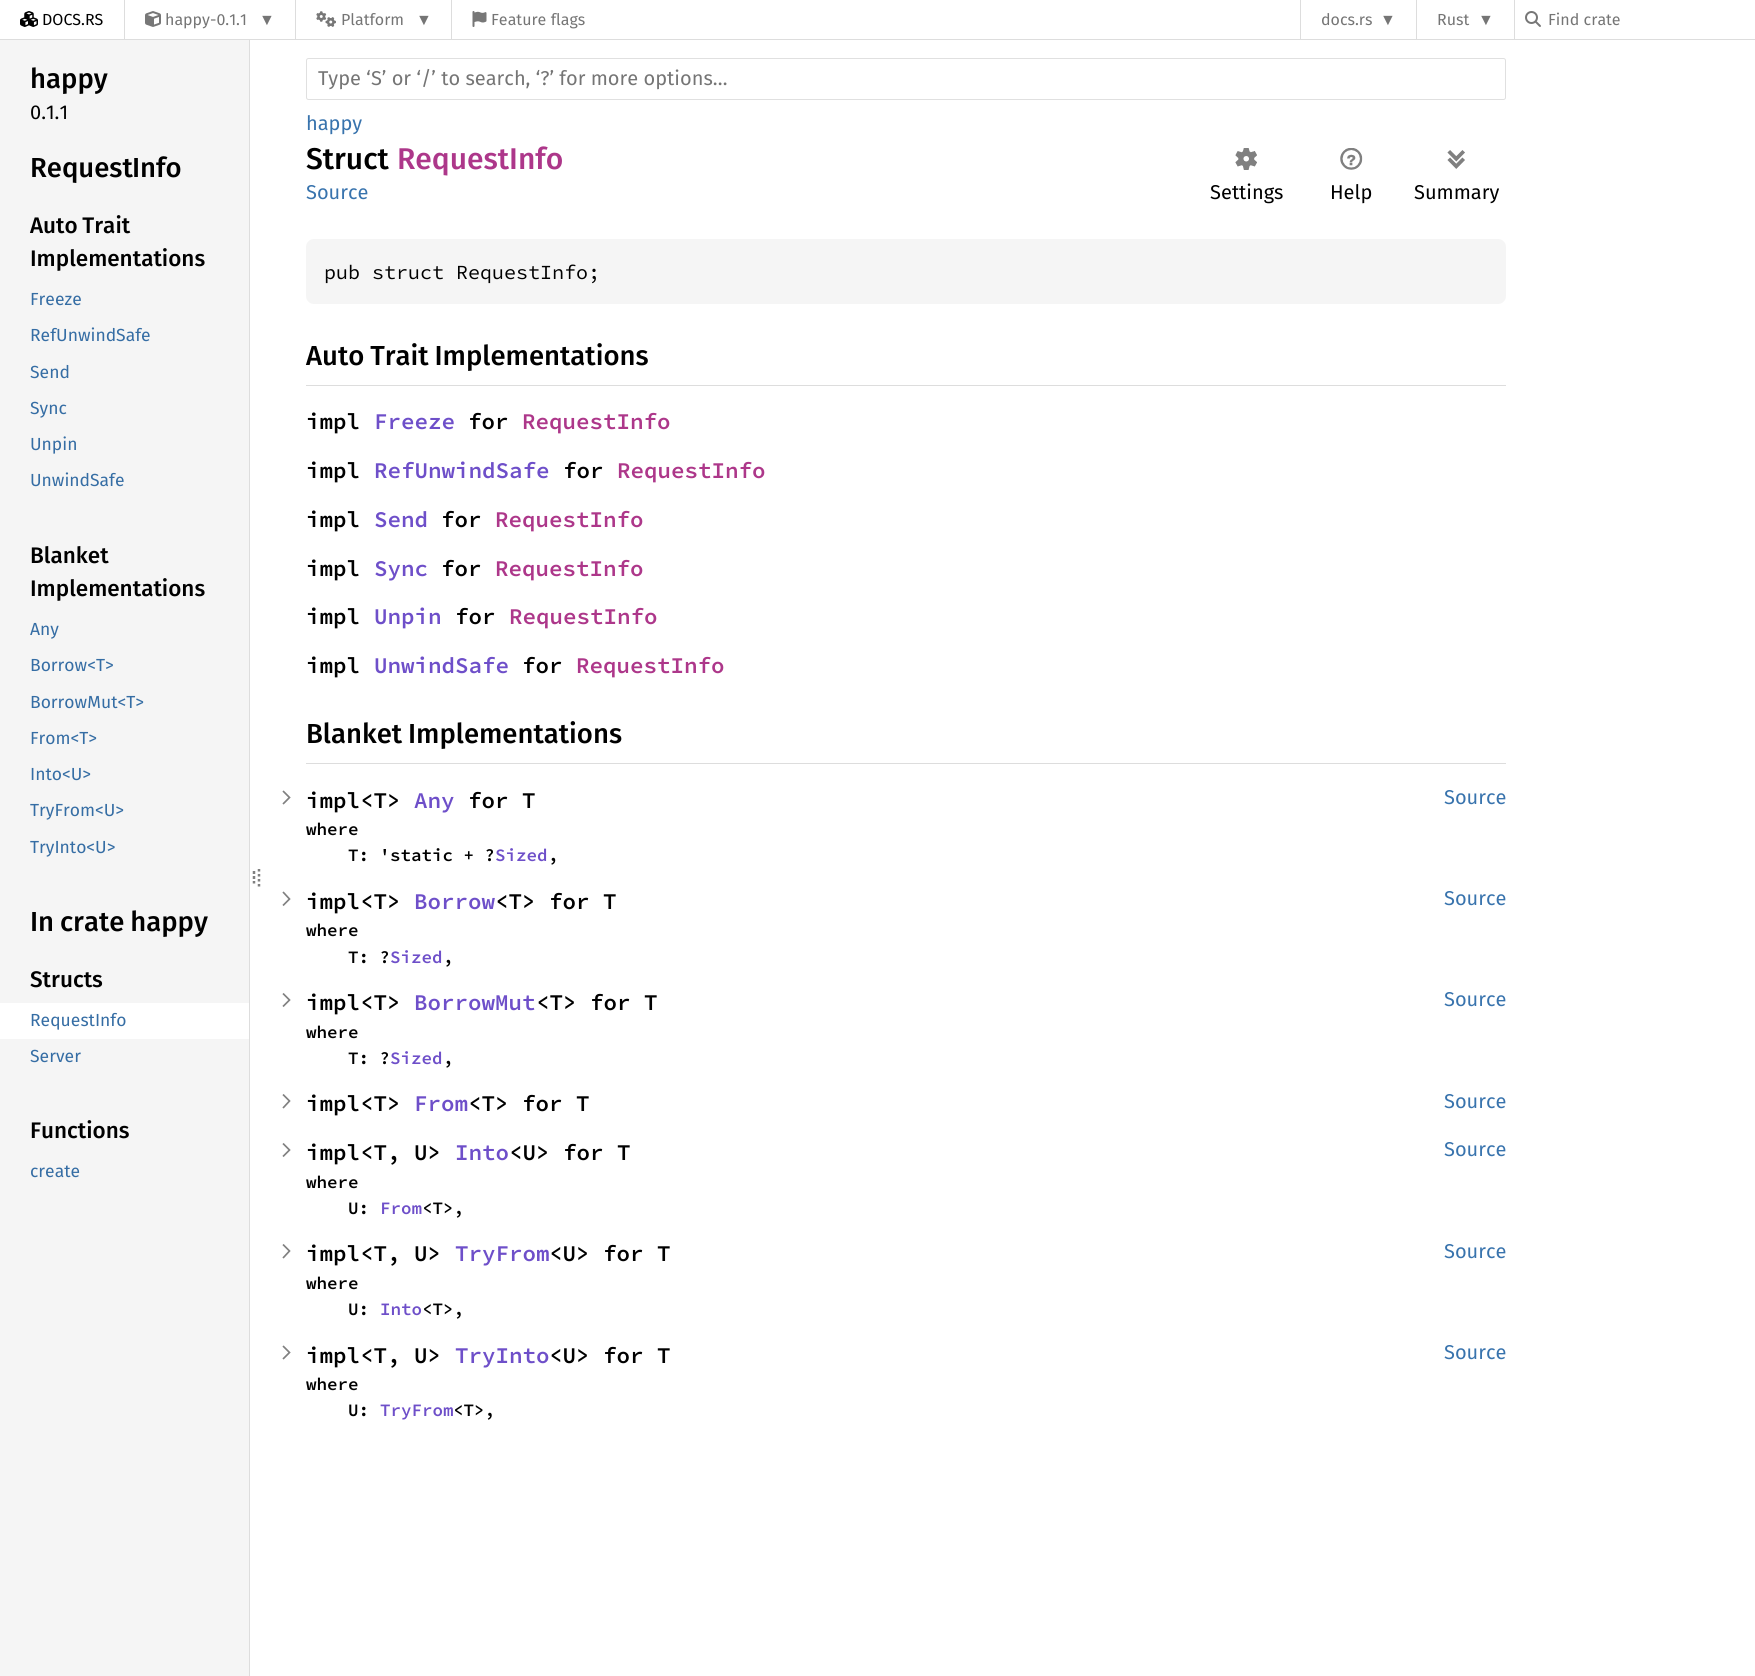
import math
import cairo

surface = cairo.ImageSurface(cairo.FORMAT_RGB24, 1755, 1676)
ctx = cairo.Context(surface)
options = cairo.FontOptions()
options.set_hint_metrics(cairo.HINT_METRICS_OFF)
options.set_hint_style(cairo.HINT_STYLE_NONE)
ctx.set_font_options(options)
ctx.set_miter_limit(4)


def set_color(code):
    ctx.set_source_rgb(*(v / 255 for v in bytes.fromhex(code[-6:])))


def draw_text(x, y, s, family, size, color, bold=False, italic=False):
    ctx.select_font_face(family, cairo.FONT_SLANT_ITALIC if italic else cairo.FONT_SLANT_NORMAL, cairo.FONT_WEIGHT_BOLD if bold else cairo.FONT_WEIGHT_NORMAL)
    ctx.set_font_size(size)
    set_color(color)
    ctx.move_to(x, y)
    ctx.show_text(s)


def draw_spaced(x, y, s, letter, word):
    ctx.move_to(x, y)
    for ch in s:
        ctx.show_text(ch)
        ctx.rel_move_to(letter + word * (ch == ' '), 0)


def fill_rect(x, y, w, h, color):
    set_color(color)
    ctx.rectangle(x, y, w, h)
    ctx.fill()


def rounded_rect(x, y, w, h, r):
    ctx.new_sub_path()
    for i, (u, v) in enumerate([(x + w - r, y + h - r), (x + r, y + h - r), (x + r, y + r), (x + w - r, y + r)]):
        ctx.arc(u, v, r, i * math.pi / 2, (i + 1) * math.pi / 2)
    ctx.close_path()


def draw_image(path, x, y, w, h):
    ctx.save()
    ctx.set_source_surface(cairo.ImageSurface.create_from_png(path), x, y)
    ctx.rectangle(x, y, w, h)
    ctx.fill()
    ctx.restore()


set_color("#ffffff")
ctx.paint()
fill_rect(0, 39, 1755, 1, "#dddddd")
draw_image("assets/img1.png", 20, 11, 18, 16)
draw_text(42, 25, "DOCS.RS", "Fira Sans", 16, "#000000")
fill_rect(124, 0, 1, 39, "#dddddd")
draw_image("assets/img2.png", 145, 11, 16, 16)
draw_text(165, 25, "happy-0.1.1", "Fira Sans", 16, "#757575")
draw_text(259, 25, "▼", "Liberation Sans", 16, "#757575")
fill_rect(295, 0, 1, 39, "#dddddd")
draw_image("assets/img3.png", 316, 11, 20, 16)
draw_text(341, 25, "Platform", "Fira Sans", 16, "#757575")
draw_text(416, 25, "▼", "Liberation Sans", 16, "#757575")
fill_rect(451, 0, 1, 39, "#dddddd")
draw_image("assets/img4.png", 472, 11, 15, 16)
draw_text(491, 25, "Feature flags", "Fira Sans", 16, "#757575")
fill_rect(1300, 0, 1, 39, "#dddddd")
draw_text(1321, 25, "docs.rs", "Fira Sans", 16, "#757575")
draw_text(1380, 25, "▼", "Liberation Sans", 16, "#757575")
fill_rect(1416, 0, 1, 39, "#dddddd")
draw_text(1437, 25, "Rust", "Fira Sans", 16, "#757575")
draw_text(1478, 25, "▼", "Liberation Sans", 16, "#757575")
fill_rect(1514, 0, 1, 39, "#dddddd")
draw_image("assets/img5.png", 1525, 11, 16, 16)
draw_text(1548, 25, "Find crate", "Fira Sans", 16, "#757575")
fill_rect(0, 40, 249, 1636, "#f5f5f5")
fill_rect(249, 40, 1, 1636, "#dddddd")
draw_text(30, 88, "happy", "Fira Sans Medium", 27.5, "#000000")
draw_text(30, 119, "0.1.1", "Fira Sans", 20, "#000000")
draw_text(30, 177, "Request", "Fira Sans Medium", 27.5, "#000000")
draw_text(132, 177, "Info", "Fira Sans Medium", 27.5, "#000000")
ctx.set_font_size(22.5)
draw_spaced(30, 233, "Auto Trait", 0, -1)
draw_text(30, 266, "Implementations", "Fira Sans Medium", 22.5, "#000000")
draw_text(30, 305, "Freeze", "Fira Sans", 17.5, "#356da4")
draw_text(30, 341, "RefUnwindSafe", "Fira Sans", 17.5, "#356da4")
draw_text(30, 378, "Send", "Fira Sans", 17.5, "#356da4")
draw_text(30, 414, "Sync", "Fira Sans", 17.5, "#356da4")
draw_text(30, 450, "Unpin", "Fira Sans", 17.5, "#356da4")
draw_text(30, 486, "UnwindSafe", "Fira Sans", 17.5, "#356da4")
draw_text(30, 563, "Blanket", "Fira Sans Medium", 22.5, "#000000")
draw_text(30, 596, "Implementations", "Fira Sans Medium", 22.5, "#000000")
draw_text(30, 635, "Any", "Fira Sans", 17.5, "#356da4")
draw_text(30, 671, "Borrow<T>", "Fira Sans", 17.5, "#356da4")
draw_text(30, 708, "BorrowMut<T>", "Fira Sans", 17.5, "#356da4")
draw_text(30, 744, "From<T>", "Fira Sans", 17.5, "#356da4")
draw_text(30, 780, "Into<U>", "Fira Sans", 17.5, "#356da4")
draw_text(30, 816, "TryFrom<U>", "Fira Sans", 17.5, "#356da4")
draw_text(30, 853, "TryInto<U>", "Fira Sans", 17.5, "#356da4")
ctx.select_font_face("Fira Sans Medium")
ctx.set_font_size(27.5)
set_color("#000000")
draw_spaced(30, 931, "In crate happy", 0, -1)
draw_text(30, 987, "Structs", "Fira Sans Medium", 22.5, "#000000")
fill_rect(0, 1003, 249, 36, "#ffffff")
draw_text(30, 1026, "RequestInfo", "Fira Sans", 17.5, "#356da4")
draw_text(30, 1062, "Server", "Fira Sans", 17.5, "#356da4")
draw_text(30, 1138, "Functions", "Fira Sans Medium", 22.5, "#000000")
draw_text(30, 1177, "create", "Fira Sans", 17.5, "#356da4")
ctx.new_path()
ctx.move_to(254, 871)
ctx.line_to(254, 874)
ctx.move_to(254, 876)
ctx.line_to(254, 879)
ctx.move_to(254, 881)
ctx.line_to(254, 883.5)
set_color("#808080")
ctx.set_line_width(2.5)
ctx.stroke()
ctx.new_path()
ctx.move_to(259, 869)
ctx.line_to(259, 889)
ctx.set_dash([2.5, 2.5])
ctx.stroke()
rounded_rect(306.5, 58.5, 1199, 41, 2)
set_color("#e0e0e0")
ctx.set_line_width(1)
ctx.set_dash([])
ctx.stroke()
draw_text(318, 85, "Type ‘S’ or ‘/’ to search, ‘?’ for more options…", "Fira Sans", 20, "#757575")
draw_text(306, 130, "happy", "Fira Sans", 20, "#3873ad")
draw_text(306, 169, "Struct", "Fira Sans Medium", 30, "#000000")
draw_text(397, 169, "RequestInfo", "Fira Sans Medium", 30, "#ad378a")
draw_text(306, 199, "Source", "Fira Sans", 20, "#3873ad")
draw_image("assets/img6.png", 1235, 148, 22, 22)
draw_text(1210, 199, "Settings", "Fira Sans", 20, "#000000")
draw_image("assets/img7.png", 1340, 148, 23, 22)
draw_text(1330, 199, "Help", "Fira Sans", 20, "#000000")
draw_image("assets/img8.png", 1447, 150, 18, 19)
draw_text(1414, 199, "Summary", "Fira Sans", 20, "#000000")
set_color("#f5f5f5")
rounded_rect(306, 239, 1200, 65, 8)
ctx.fill()
draw_text(324, 279, "pub struct RequestInfo;", "Source Code Pro", 20, "#000000")
fill_rect(306, 385, 1200, 1, "#dddddd")
ctx.select_font_face("Fira Sans Medium")
ctx.set_font_size(27.5)
set_color("#000000")
draw_spaced(306, 365, "Auto Trait Implementations", 0, -1)
draw_text(306, 429, "impl", "Source Code Pro SemiBold", 22.5, "#000000")
draw_text(374, 429, "Freeze", "Source Code Pro SemiBold", 22.5, "#6e4fc9")
draw_text(468, 429, "for", "Source Code Pro SemiBold", 22.5, "#000000")
draw_text(522, 429, "RequestInfo", "Source Code Pro SemiBold", 22.5, "#ad378a")
draw_text(306, 478, "impl", "Source Code Pro SemiBold", 22.5, "#000000")
draw_text(374, 478, "RefUnwindSafe", "Source Code Pro SemiBold", 22.5, "#6e4fc9")
draw_text(563, 478, "for", "Source Code Pro SemiBold", 22.5, "#000000")
draw_text(617, 478, "RequestInfo", "Source Code Pro SemiBold", 22.5, "#ad378a")
draw_text(306, 527, "impl", "Source Code Pro SemiBold", 22.5, "#000000")
draw_text(374, 527, "Send", "Source Code Pro SemiBold", 22.5, "#6e4fc9")
draw_text(441, 527, "for", "Source Code Pro SemiBold", 22.5, "#000000")
draw_text(495, 527, "RequestInfo", "Source Code Pro SemiBold", 22.5, "#ad378a")
draw_text(306, 576, "impl", "Source Code Pro SemiBold", 22.5, "#000000")
draw_text(374, 576, "Sync", "Source Code Pro SemiBold", 22.5, "#6e4fc9")
draw_text(441, 576, "for", "Source Code Pro SemiBold", 22.5, "#000000")
draw_text(495, 576, "RequestInfo", "Source Code Pro SemiBold", 22.5, "#ad378a")
draw_text(306, 624, "impl", "Source Code Pro SemiBold", 22.5, "#000000")
draw_text(374, 624, "Unpin", "Source Code Pro SemiBold", 22.5, "#6e4fc9")
draw_text(455, 624, "for", "Source Code Pro SemiBold", 22.5, "#000000")
draw_text(509, 624, "RequestInfo", "Source Code Pro SemiBold", 22.5, "#ad378a")
draw_text(306, 673, "impl", "Source Code Pro SemiBold", 22.5, "#000000")
draw_text(374, 673, "UnwindSafe", "Source Code Pro SemiBold", 22.5, "#6e4fc9")
draw_text(522, 673, "for", "Source Code Pro SemiBold", 22.5, "#000000")
draw_text(576, 673, "RequestInfo", "Source Code Pro SemiBold", 22.5, "#ad378a")
fill_rect(306, 763, 1200, 1, "#dddddd")
ctx.select_font_face("Fira Sans Medium")
ctx.set_font_size(27.5)
set_color("#000000")
draw_spaced(306, 743, "Blanket Implementations", 0, -1)
ctx.new_path()
ctx.move_to(283, 791)
ctx.line_to(289.5, 797.5)
ctx.line_to(283, 804)
set_color("#808080")
ctx.set_line_width(1.7)
ctx.stroke()
draw_text(306, 808, "impl<T>", "Source Code Pro SemiBold", 22.5, "#000000")
draw_text(414, 808, "Any", "Source Code Pro SemiBold", 22.5, "#6e4fc9")
draw_text(468, 808, "for T", "Source Code Pro SemiBold", 22.5, "#000000")
draw_text(306, 835, "where", "Source Code Pro SemiBold", 17.5, "#000000")
draw_text(348, 861, "T: 'static + ?", "Source Code Pro SemiBold", 17.5, "#000000")
draw_text(495, 861, "Sized", "Source Code Pro SemiBold", 17.5, "#6e4fc9")
draw_text(548, 861, ",", "Source Code Pro SemiBold", 17.5, "#000000")
draw_text(1444, 804, "Source", "Fira Sans", 20, "#3873ad")
ctx.new_path()
ctx.move_to(283, 892)
ctx.line_to(289.5, 899)
ctx.line_to(283, 905.5)
set_color("#808080")
ctx.stroke()
draw_text(306, 909, "impl<T>", "Source Code Pro SemiBold", 22.5, "#000000")
draw_text(414, 909, "Borrow", "Source Code Pro SemiBold", 22.5, "#6e4fc9")
draw_text(495, 909, "<T> for T", "Source Code Pro SemiBold", 22.5, "#000000")
draw_text(306, 936, "where", "Source Code Pro SemiBold", 17.5, "#000000")
draw_text(348, 963, "T: ?", "Source Code Pro SemiBold", 17.5, "#000000")
draw_text(390, 963, "Sized", "Source Code Pro SemiBold", 17.5, "#6e4fc9")
draw_text(443, 963, ",", "Source Code Pro SemiBold", 17.5, "#000000")
draw_text(1444, 905, "Source", "Fira Sans", 20, "#3873ad")
ctx.new_path()
ctx.move_to(283, 993.5)
ctx.line_to(289.5, 1000)
ctx.line_to(283, 1006.5)
set_color("#808080")
ctx.stroke()
draw_text(306, 1010, "impl<T>", "Source Code Pro SemiBold", 22.5, "#000000")
draw_text(414, 1010, "BorrowMut", "Source Code Pro SemiBold", 22.5, "#6e4fc9")
draw_text(536, 1010, "<T> for T", "Source Code Pro SemiBold", 22.5, "#000000")
draw_text(306, 1038, "where", "Source Code Pro SemiBold", 17.5, "#000000")
draw_text(348, 1064, "T: ?", "Source Code Pro SemiBold", 17.5, "#000000")
draw_text(390, 1064, "Sized", "Source Code Pro SemiBold", 17.5, "#6e4fc9")
draw_text(443, 1064, ",", "Source Code Pro SemiBold", 17.5, "#000000")
draw_text(1444, 1006, "Source", "Fira Sans", 20, "#3873ad")
ctx.new_path()
ctx.move_to(283, 1094.5)
ctx.line_to(289.5, 1101)
ctx.line_to(283, 1108)
set_color("#808080")
ctx.stroke()
draw_text(306, 1111, "impl<T>", "Source Code Pro SemiBold", 22.5, "#000000")
draw_text(414, 1111, "From", "Source Code Pro SemiBold", 22.5, "#6e4fc9")
draw_text(468, 1111, "<T> for T", "Source Code Pro SemiBold", 22.5, "#000000")
draw_text(1444, 1108, "Source", "Fira Sans", 20, "#3873ad")
ctx.new_path()
ctx.move_to(283, 1143.5)
ctx.line_to(289.5, 1150)
ctx.line_to(283, 1156.5)
set_color("#808080")
ctx.stroke()
draw_text(306, 1160, "impl<T, U>", "Source Code Pro SemiBold", 22.5, "#000000")
draw_text(455, 1160, "Into", "Source Code Pro SemiBold", 22.5, "#6e4fc9")
draw_text(509, 1160, "<U> for T", "Source Code Pro SemiBold", 22.5, "#000000")
draw_text(306, 1188, "where", "Source Code Pro SemiBold", 17.5, "#000000")
draw_text(348, 1214, "U:", "Source Code Pro SemiBold", 17.5, "#000000")
draw_text(380, 1214, "From", "Source Code Pro SemiBold", 17.5, "#6e4fc9")
draw_text(422, 1214, "<T>,", "Source Code Pro SemiBold", 17.5, "#000000")
draw_text(1444, 1156, "Source", "Fira Sans", 20, "#3873ad")
ctx.new_path()
ctx.move_to(283, 1244.5)
ctx.line_to(289.5, 1251)
ctx.line_to(283, 1258)
set_color("#808080")
ctx.stroke()
draw_text(306, 1261, "impl<T, U>", "Source Code Pro SemiBold", 22.5, "#000000")
draw_text(455, 1261, "TryFrom", "Source Code Pro SemiBold", 22.5, "#6e4fc9")
draw_text(549, 1261, "<U> for T", "Source Code Pro SemiBold", 22.5, "#000000")
draw_text(306, 1289, "where", "Source Code Pro SemiBold", 17.5, "#000000")
draw_text(348, 1315, "U:", "Source Code Pro SemiBold", 17.5, "#000000")
draw_text(380, 1315, "Into", "Source Code Pro SemiBold", 17.5, "#6e4fc9")
draw_text(422, 1315, "<T>,", "Source Code Pro SemiBold", 17.5, "#000000")
draw_text(1444, 1258, "Source", "Fira Sans", 20, "#3873ad")
ctx.new_path()
ctx.move_to(283, 1346)
ctx.line_to(289.5, 1352.5)
ctx.line_to(283, 1359)
set_color("#808080")
ctx.stroke()
draw_text(306, 1363, "impl<T, U>", "Source Code Pro SemiBold", 22.5, "#000000")
draw_text(455, 1363, "TryInto", "Source Code Pro SemiBold", 22.5, "#6e4fc9")
draw_text(549, 1363, "<U> for T", "Source Code Pro SemiBold", 22.5, "#000000")
draw_text(306, 1390, "where", "Source Code Pro SemiBold", 17.5, "#000000")
draw_text(348, 1416, "U:", "Source Code Pro SemiBold", 17.5, "#000000")
draw_text(380, 1416, "TryFrom", "Source Code Pro SemiBold", 17.5, "#6e4fc9")
draw_text(453, 1416, "<T>,", "Source Code Pro SemiBold", 17.5, "#000000")
draw_text(1444, 1359, "Source", "Fira Sans", 20, "#3873ad")
surface.write_to_png("output.png")
